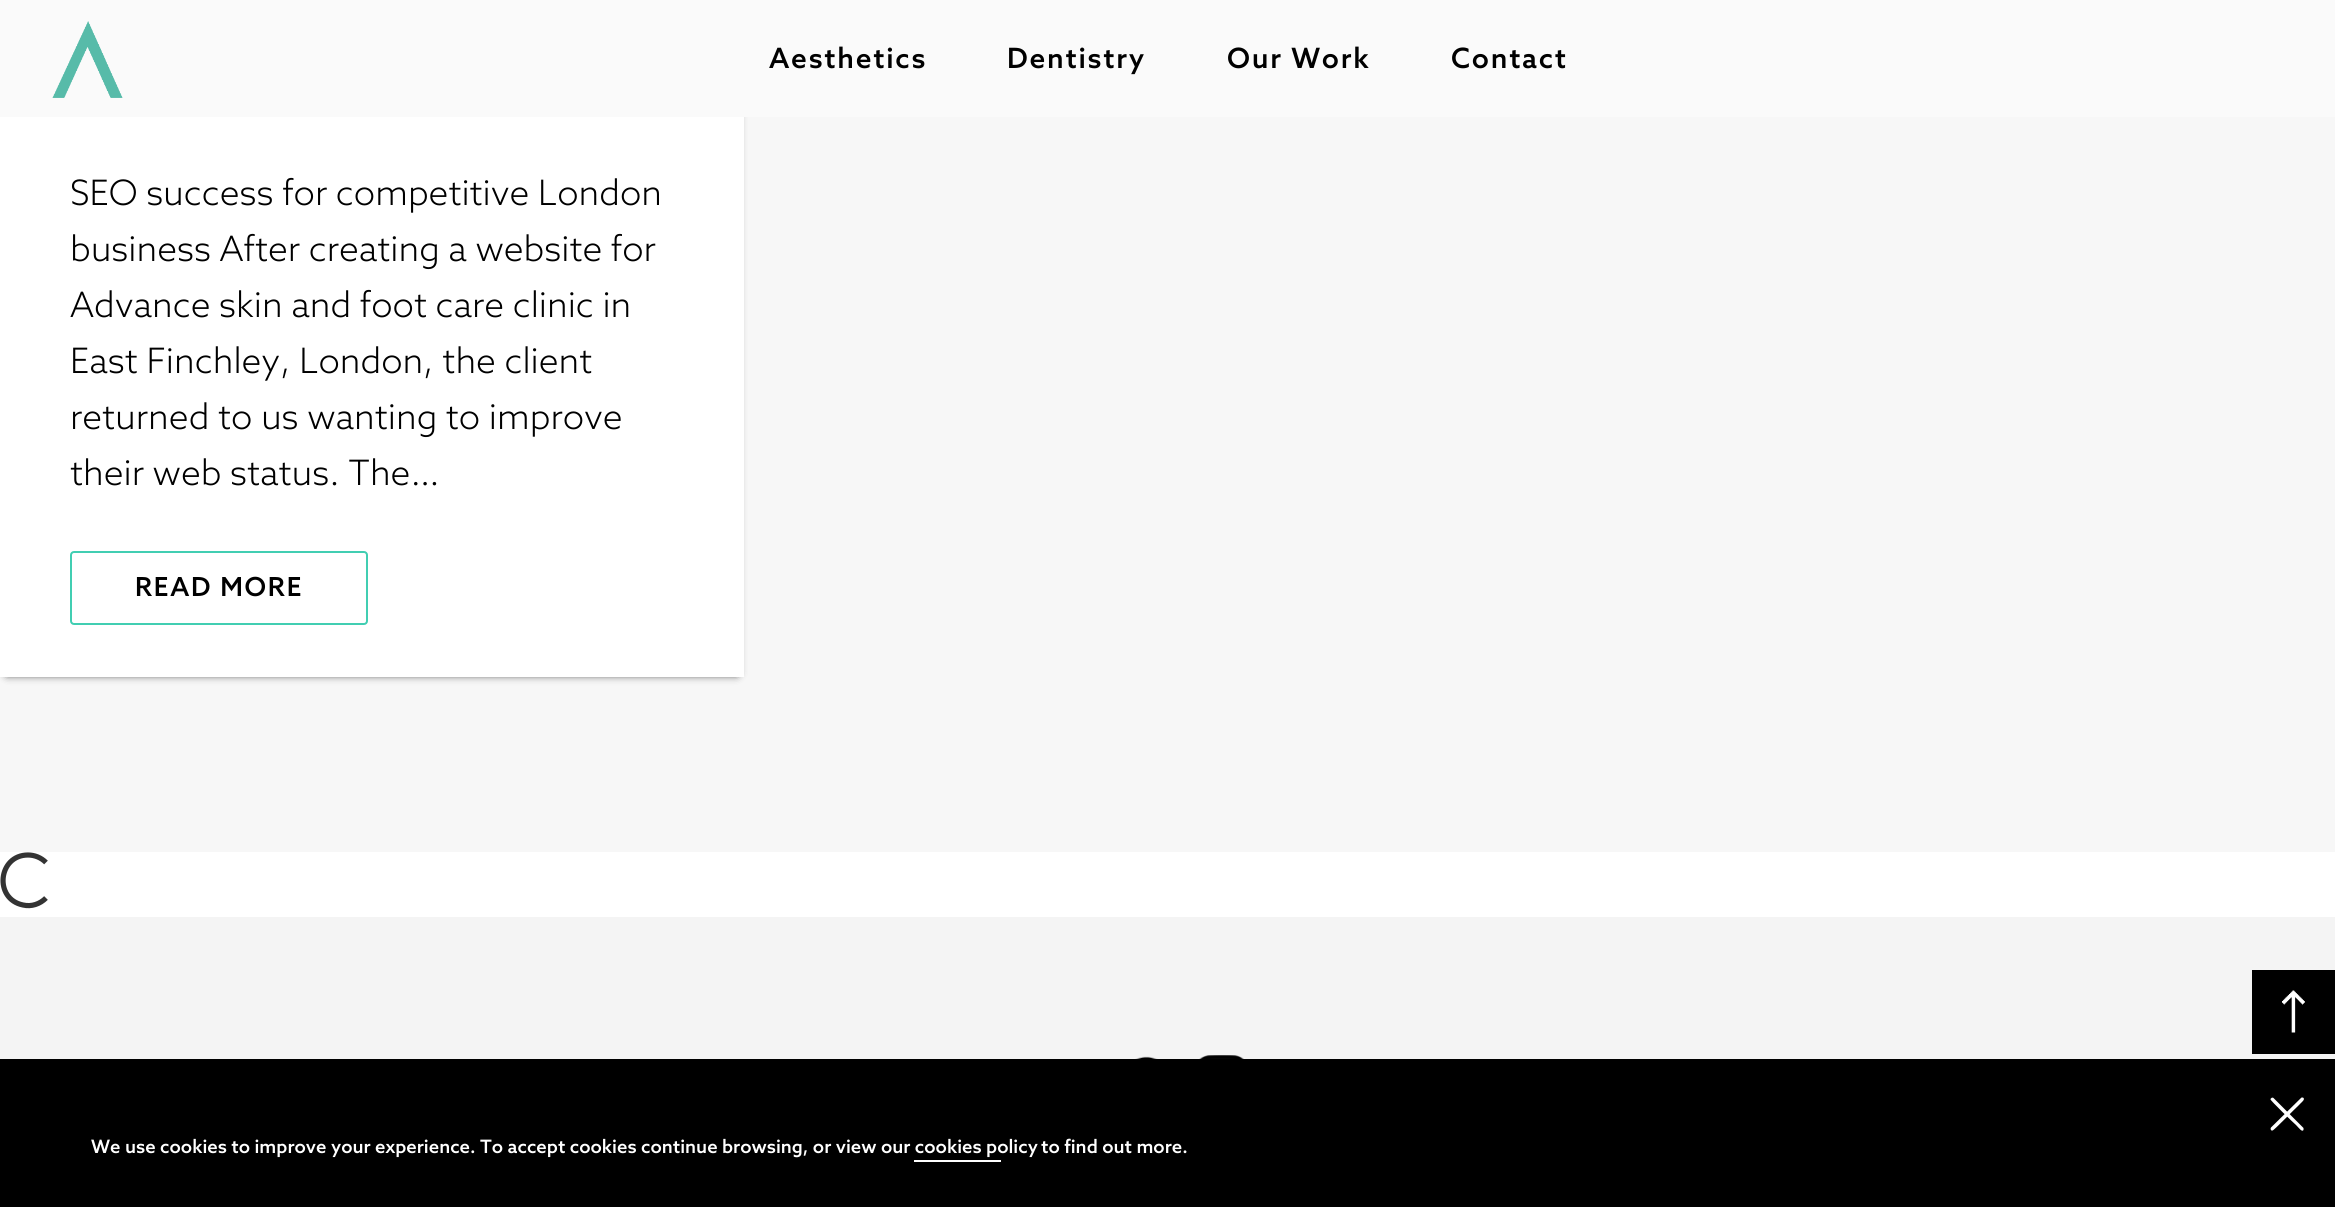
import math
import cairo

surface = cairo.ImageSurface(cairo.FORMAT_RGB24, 2335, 1207)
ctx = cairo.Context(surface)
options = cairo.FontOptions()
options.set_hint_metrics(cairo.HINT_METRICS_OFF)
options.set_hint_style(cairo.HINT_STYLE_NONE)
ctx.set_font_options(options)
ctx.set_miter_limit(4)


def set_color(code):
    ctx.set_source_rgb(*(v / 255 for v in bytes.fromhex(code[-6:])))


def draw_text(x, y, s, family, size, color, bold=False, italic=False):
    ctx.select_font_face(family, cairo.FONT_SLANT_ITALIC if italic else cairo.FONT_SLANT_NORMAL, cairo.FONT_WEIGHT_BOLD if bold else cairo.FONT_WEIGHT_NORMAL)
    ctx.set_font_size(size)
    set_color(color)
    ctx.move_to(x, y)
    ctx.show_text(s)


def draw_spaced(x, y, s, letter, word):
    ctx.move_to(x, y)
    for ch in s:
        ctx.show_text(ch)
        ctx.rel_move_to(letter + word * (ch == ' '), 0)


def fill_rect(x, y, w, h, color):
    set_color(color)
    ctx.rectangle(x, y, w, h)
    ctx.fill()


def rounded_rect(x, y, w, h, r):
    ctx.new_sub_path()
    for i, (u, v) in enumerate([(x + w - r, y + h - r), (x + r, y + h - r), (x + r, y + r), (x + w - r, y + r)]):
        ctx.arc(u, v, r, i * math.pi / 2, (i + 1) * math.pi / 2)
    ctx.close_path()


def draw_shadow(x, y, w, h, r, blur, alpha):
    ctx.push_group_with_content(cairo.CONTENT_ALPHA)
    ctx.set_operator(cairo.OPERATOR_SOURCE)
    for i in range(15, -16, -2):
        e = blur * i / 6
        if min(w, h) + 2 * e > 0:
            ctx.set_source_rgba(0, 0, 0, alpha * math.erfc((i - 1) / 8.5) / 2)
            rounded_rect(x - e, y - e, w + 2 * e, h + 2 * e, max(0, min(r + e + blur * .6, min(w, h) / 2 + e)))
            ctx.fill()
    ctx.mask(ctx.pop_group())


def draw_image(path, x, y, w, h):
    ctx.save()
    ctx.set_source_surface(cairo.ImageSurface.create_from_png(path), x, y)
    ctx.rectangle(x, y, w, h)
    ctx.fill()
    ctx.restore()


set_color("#ffffff")
ctx.paint()
fill_rect(0, 117, 2335, 735, "#f7f7f7")
set_color("#000000")
draw_shadow(7, -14, 730, 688, 0, 4.5, 1)
fill_rect(0, 0, 2335, 117, "#fafafa")
draw_image("assets/img1.png", 52, 21, 71, 77)
ctx.select_font_face("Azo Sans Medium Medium")
ctx.set_font_size(28)
set_color("#000000")
draw_spaced(769, 68, "Aesthetics", 1.75, 0)
draw_spaced(1007, 68, "Dentistry", 1.75, 0)
draw_spaced(1227, 68, "Our Work", 1.75, 0)
draw_spaced(1451, 68, "Contact", 1.75, 0)
fill_rect(0, 117, 744, 560, "#ffffff")
draw_text(70, 205, "SEO success for competitive London", "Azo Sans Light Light", 35, "#000000")
draw_text(70, 261, "business After creating a website for", "Azo Sans Light Light", 35, "#000000")
draw_text(70, 317, "Advance skin and foot care clinic in", "Azo Sans Light Light", 35, "#000000")
draw_text(70, 373, "East Finchley, London, the client", "Azo Sans Light Light", 35, "#000000")
draw_text(70, 429, "returned to us wanting to improve", "Azo Sans Light Light", 35, "#000000")
draw_text(70, 485, "their web status. The…", "Azo Sans Light Light", 35, "#000000")
rounded_rect(71, 552, 296, 72, 3)
set_color("#41ceb2")
ctx.stroke()
ctx.select_font_face("Azo Sans Medium Medium")
ctx.set_font_size(26.25)
set_color("#000000")
draw_spaced(135, 596, "READ MORE", 1.75, 0)
ctx.new_path()
ctx.move_to(46, 898)
ctx.curve_to(40, 904, 31.5, 907, 23, 905)
ctx.curve_to(-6.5, 899, -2, 855, 28, 855)
ctx.curve_to(34.5, 855, 41, 857.5, 46, 862.5)
set_color("#333333")
ctx.set_line_width(5.2)
ctx.stroke()
fill_rect(0, 917, 2335, 142, "#f4f4f4")
draw_image("assets/img2.png", 1135, 1056, 23, 3)
draw_image("assets/img3.png", 1199, 1055, 45, 4)
fill_rect(2252, 970, 83, 84, "#000000")
draw_image("assets/img4.png", 2282, 990, 23, 43)
fill_rect(0, 1059, 2335, 148, "#000000")
set_color("#ffffff")
ctx.new_path()
ctx.move_to(2271, 1127.5)
ctx.line_to(2301.5, 1097.5)
ctx.line_to(2303, 1097.5)
ctx.curve_to(2306, 1099.5, 2301, 1102.5, 2298.5, 1105.5)
ctx.curve_to(2295.5, 1108, 2274, 1130.5, 2272.5, 1130.5)
ctx.curve_to(2271, 1131, 2270, 1129, 2271, 1127.5)
ctx.close_path()
ctx.fill()
ctx.new_path()
ctx.move_to(2273.5, 1098)
ctx.line_to(2303.5, 1128)
ctx.line_to(2303.5, 1130)
ctx.curve_to(2302, 1132.5, 2299, 1128, 2296, 1125)
ctx.curve_to(2293, 1122.5, 2271, 1101, 2270.5, 1099.5)
ctx.curve_to(2270.5, 1098, 2272.5, 1097, 2273.5, 1098)
ctx.close_path()
ctx.fill()
draw_text(91, 1153, "We use cookies to improve your experience. To accept cookies continue browsing, or view our cookies policy", "Azo Sans Medium Medium", 18.48, "#ffffff")
draw_text(1041, 1153, "to find out more.", "Azo Sans Medium Medium", 18.48, "#ffffff")
fill_rect(914, 1160, 87, 2, "#ffffff")
surface.write_to_png("output.png")
